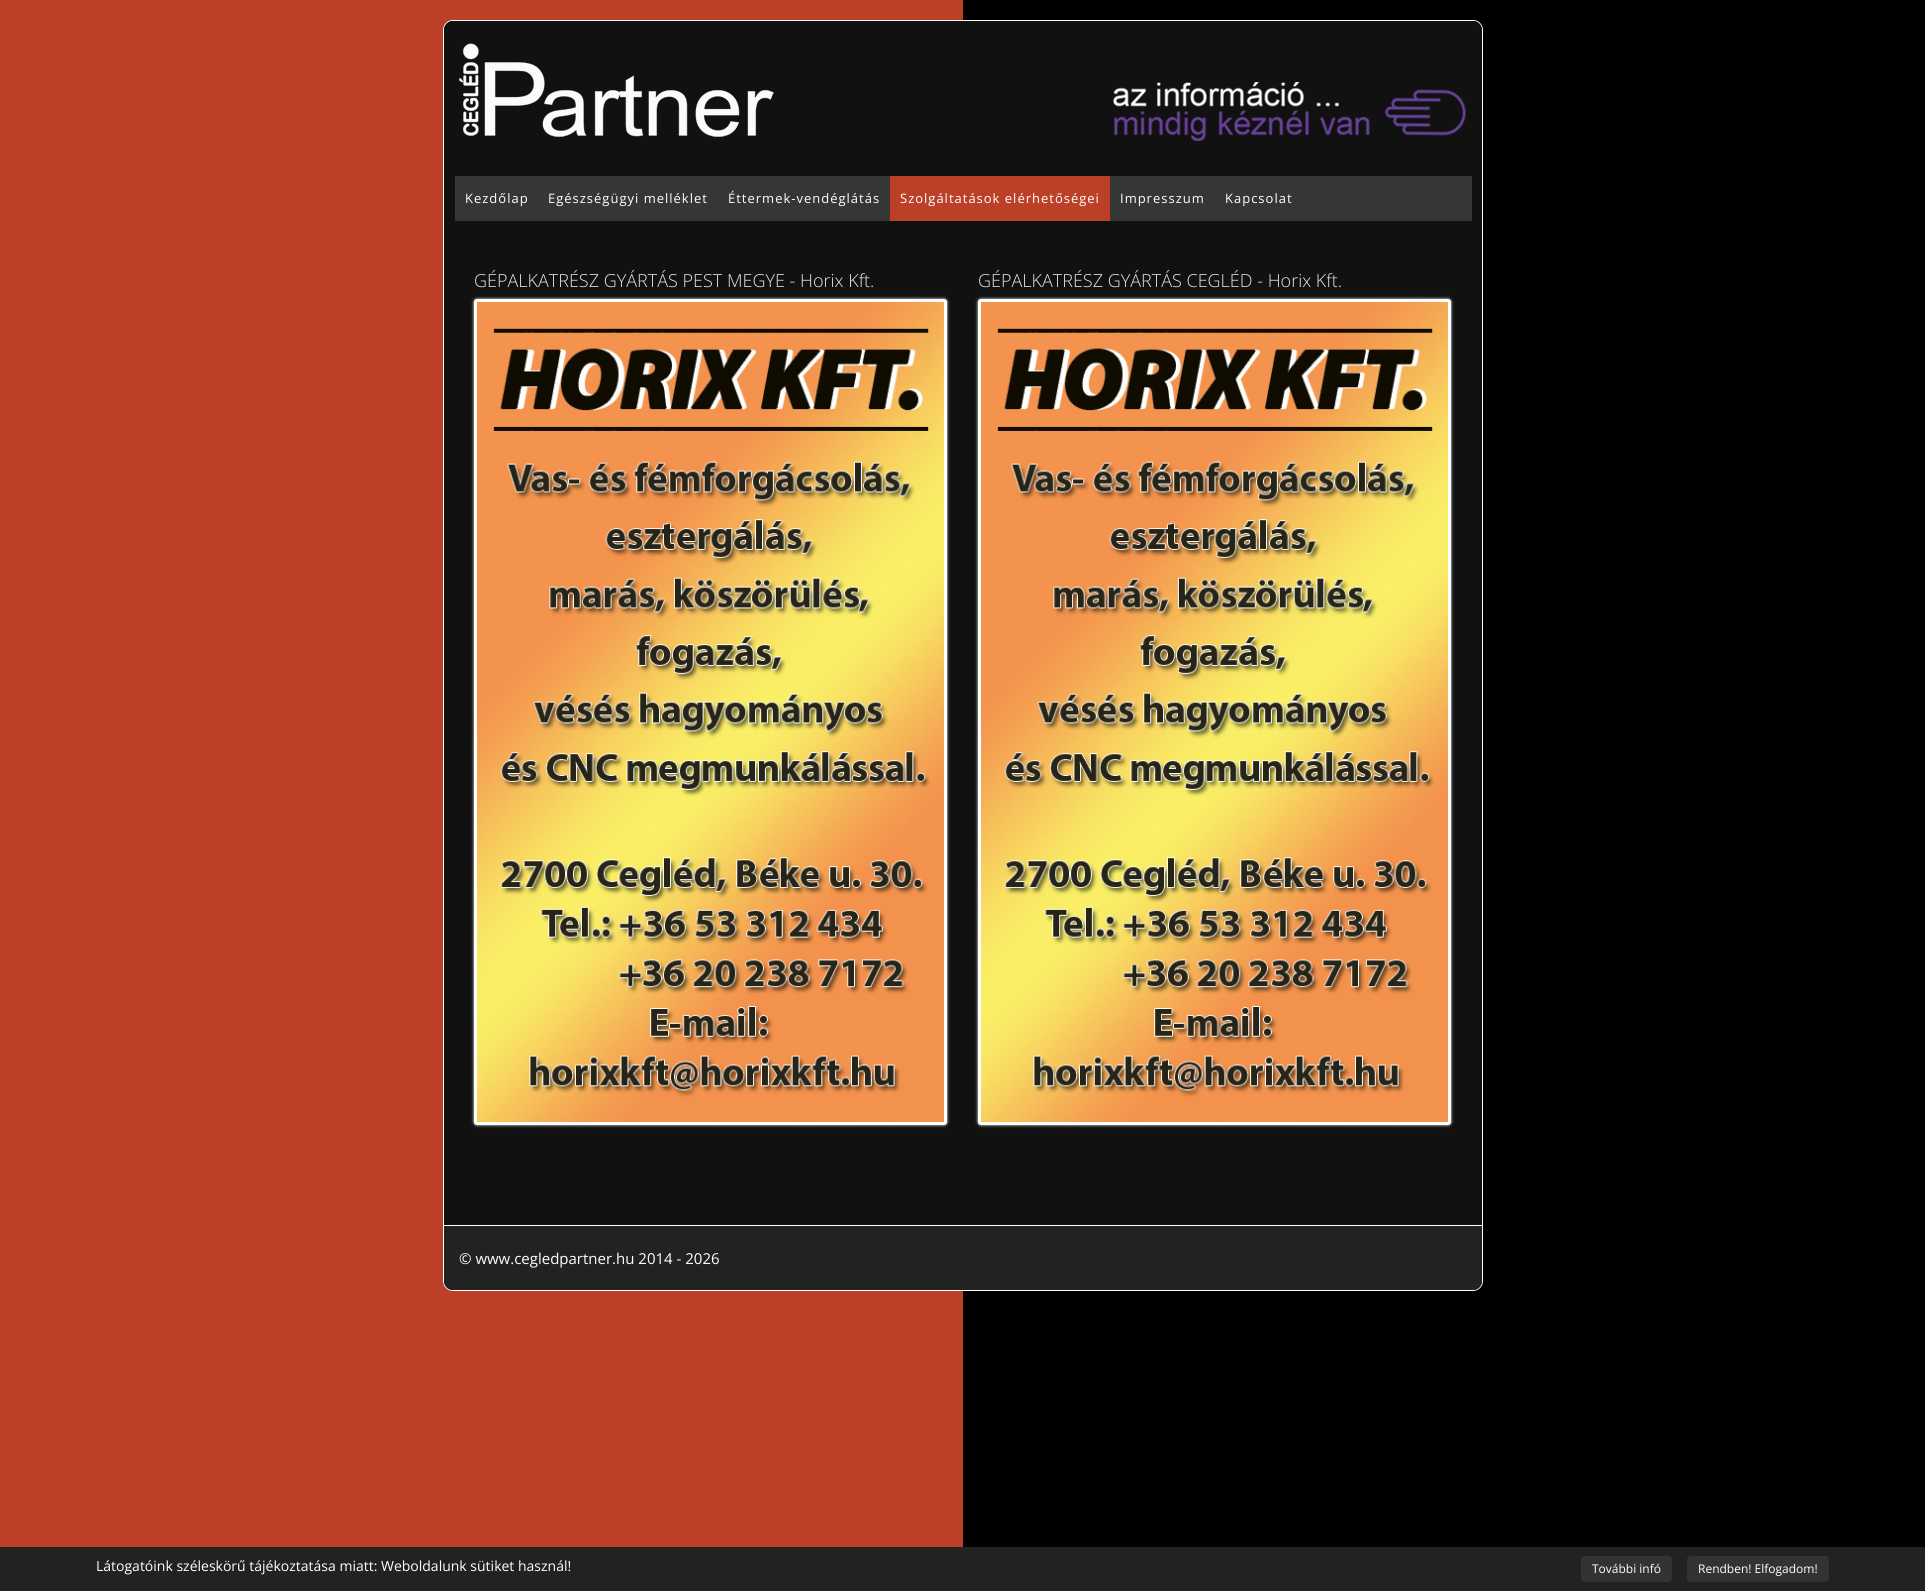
import math
import cairo

surface = cairo.ImageSurface(cairo.FORMAT_RGB24, 1925, 1591)
ctx = cairo.Context(surface)
options = cairo.FontOptions()
options.set_hint_metrics(cairo.HINT_METRICS_OFF)
options.set_hint_style(cairo.HINT_STYLE_NONE)
ctx.set_font_options(options)
ctx.set_miter_limit(4)


def set_color(code):
    ctx.set_source_rgb(*(v / 255 for v in bytes.fromhex(code[-6:])))


def draw_text(x, y, s, family, size, color, bold=False, italic=False):
    ctx.select_font_face(family, cairo.FONT_SLANT_ITALIC if italic else cairo.FONT_SLANT_NORMAL, cairo.FONT_WEIGHT_BOLD if bold else cairo.FONT_WEIGHT_NORMAL)
    ctx.set_font_size(size)
    set_color(color)
    ctx.move_to(x, y)
    ctx.show_text(s)


def draw_spaced(x, y, s, letter, word):
    ctx.move_to(x, y)
    for ch in s:
        ctx.show_text(ch)
        ctx.rel_move_to(letter + word * (ch == ' '), 0)


def fill_rect(x, y, w, h, color):
    set_color(color)
    ctx.rectangle(x, y, w, h)
    ctx.fill()


def rounded_rect(x, y, w, h, r):
    ctx.new_sub_path()
    for i, (u, v) in enumerate([(x + w - r, y + h - r), (x + r, y + h - r), (x + r, y + r), (x + w - r, y + r)]):
        ctx.arc(u, v, r, i * math.pi / 2, (i + 1) * math.pi / 2)
    ctx.close_path()


def draw_shadow(x, y, w, h, r, blur, alpha):
    ctx.push_group_with_content(cairo.CONTENT_ALPHA)
    ctx.set_operator(cairo.OPERATOR_SOURCE)
    for i in range(15, -16, -2):
        e = blur * i / 6
        if min(w, h) + 2 * e > 0:
            ctx.set_source_rgba(0, 0, 0, alpha * math.erfc((i - 1) / 8.5) / 2)
            rounded_rect(x - e, y - e, w + 2 * e, h + 2 * e, max(0, min(r + e + blur * .6, min(w, h) / 2 + e)))
            ctx.fill()
    ctx.mask(ctx.pop_group())


def draw_image(path, x, y, w, h):
    ctx.save()
    ctx.set_source_surface(cairo.ImageSurface.create_from_png(path), x, y)
    ctx.rectangle(x, y, w, h)
    ctx.fill()
    ctx.restore()


set_color("#bc3f28")
ctx.paint()
fill_rect(963, 0, 962, 1547, "#000000")
set_color("#111111")
rounded_rect(443.5, 20.5, 1039, 1270, 9.5)
ctx.fill_preserve()
set_color("#ffffff")
ctx.set_line_width(1)
ctx.stroke()
set_color("#111111")
ctx.new_path()
ctx.move_to(453, 21)
ctx.line_to(1473, 21)
ctx.curve_to(1478, 21, 1482, 25, 1482, 30)
ctx.line_to(1482, 176)
ctx.line_to(444, 176)
ctx.line_to(444, 30)
ctx.curve_to(444, 25, 448, 21, 453, 21)
ctx.close_path()
ctx.fill()
draw_image("assets/img1.png", 459, 43, 315, 94)
draw_image("assets/img2.png", 1113, 82, 353, 59)
fill_rect(455, 176, 1017, 45, "#363636")
ctx.select_font_face("Open Sans")
ctx.set_font_size(13)
set_color("#ffffff")
draw_spaced(465, 203, "Kezdőlap", 1, 0)
draw_spaced(548, 203, "Egészségügyi melléklet", 1, 0)
draw_spaced(728, 203, "Éttermek-vendéglátás", 1, 0)
fill_rect(890, 176, 220, 45, "#bc3f28")
set_color("#ffffff")
draw_spaced(900, 203, "Szolgáltatások elérhetőségei", 1, 0)
draw_spaced(1120, 203, "Impresszum", 1, 0)
draw_spaced(1225, 203, "Kapcsolat", 1, 0)
draw_text(474, 287, "GÉPALKATRÉSZ GYÁRTÁS PEST MEGYE - Horix Kft.", "Open Sans Light", 18, "#e5e5e5")
set_color("#ffffff")
draw_shadow(474, 299, 473, 826, 3, 1.5, 1)
rounded_rect(475.5, 300.5, 470, 823, 1.5)
set_color("#ffffff")
ctx.set_line_width(3)
ctx.stroke()
draw_image("assets/img3.png", 477, 302, 467, 820)
draw_text(978, 287, "GÉPALKATRÉSZ GYÁRTÁS CEGLÉD - Horix Kft.", "Open Sans Light", 18, "#e5e5e5")
set_color("#ffffff")
draw_shadow(978, 299, 473, 826, 3, 1.5, 1)
rounded_rect(979.5, 300.5, 470, 823, 1.5)
set_color("#ffffff")
ctx.stroke()
draw_image("assets/img3.png", 981, 302, 467, 820)
set_color("#222222")
ctx.new_path()
ctx.move_to(444, 1225)
ctx.line_to(1482, 1225)
ctx.line_to(1482, 1281)
ctx.curve_to(1482, 1286, 1478, 1290, 1473, 1290)
ctx.line_to(453, 1290)
ctx.curve_to(448, 1290, 444, 1286, 444, 1281)
ctx.close_path()
ctx.fill()
fill_rect(444, 1225, 1038, 1, "#ffffff")
draw_text(459, 1264, "© www.cegledpartner.hu 2014 - 2026", "Open Sans", 15, "#ffffff")
fill_rect(0, 1547, 1925, 44, "#222222")
draw_text(96, 1571, "Látogatóink széleskörű tájékoztatása miatt: Weboldalunk sütiket használ!", "Open Sans", 14, "#ffffff")
set_color("#333333")
rounded_rect(1581, 1556, 91, 26, 4)
ctx.fill()
draw_text(1592, 1573, "További infó", "Open Sans", 12, "#ffffff")
set_color("#333333")
rounded_rect(1687, 1556, 142, 26, 4)
ctx.fill()
draw_text(1698, 1573, "Rendben! Elfogadom!", "Open Sans", 12, "#ffffff")
surface.write_to_png("output.png")
